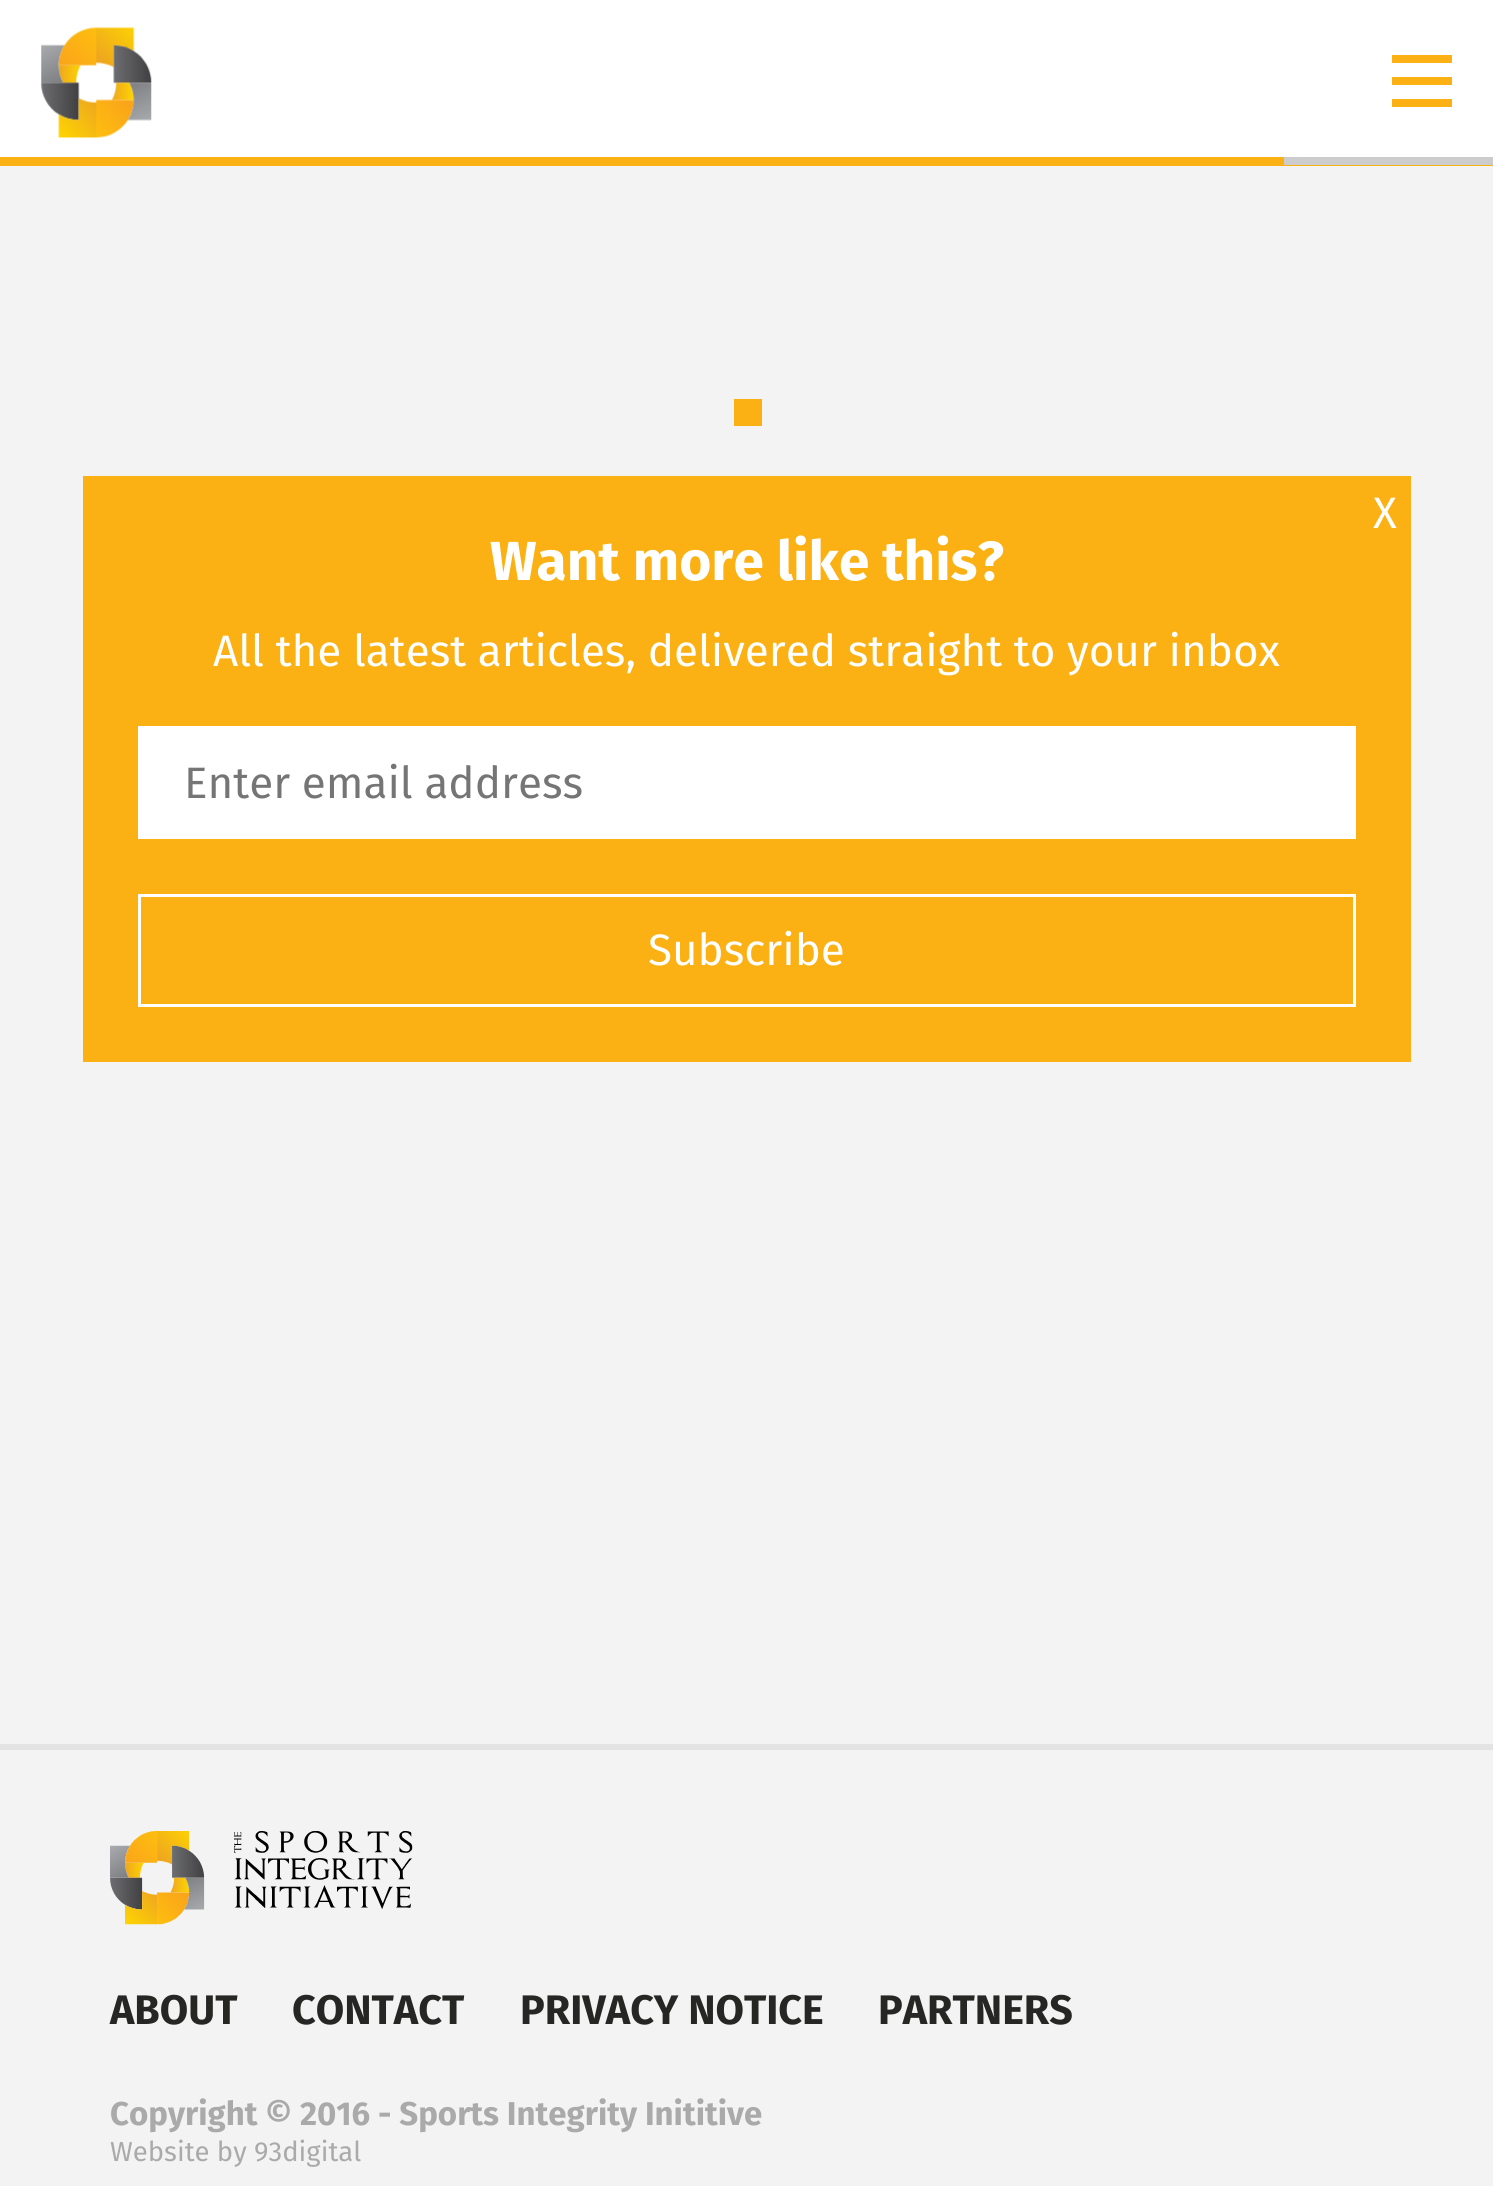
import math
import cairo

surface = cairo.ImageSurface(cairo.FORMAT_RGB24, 1493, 2186)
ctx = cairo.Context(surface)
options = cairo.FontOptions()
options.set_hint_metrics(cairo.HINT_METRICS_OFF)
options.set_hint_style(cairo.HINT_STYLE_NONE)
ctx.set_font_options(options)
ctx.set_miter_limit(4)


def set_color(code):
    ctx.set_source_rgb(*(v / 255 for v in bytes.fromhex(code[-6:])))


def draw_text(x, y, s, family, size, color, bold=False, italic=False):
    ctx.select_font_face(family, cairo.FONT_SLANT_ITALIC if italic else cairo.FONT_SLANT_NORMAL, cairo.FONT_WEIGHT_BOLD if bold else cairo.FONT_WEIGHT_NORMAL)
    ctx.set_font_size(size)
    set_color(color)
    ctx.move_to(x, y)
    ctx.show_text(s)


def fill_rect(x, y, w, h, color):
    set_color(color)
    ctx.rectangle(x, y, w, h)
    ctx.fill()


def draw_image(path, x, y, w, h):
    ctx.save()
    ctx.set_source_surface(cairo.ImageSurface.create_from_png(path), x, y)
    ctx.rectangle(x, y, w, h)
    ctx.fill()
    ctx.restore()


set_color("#f3f3f3")
ctx.paint()
fill_rect(0, 0, 1493, 157, "#ffffff")
draw_image("assets/img1.png", 41, 27, 111, 111)
fill_rect(1392, 55, 60, 8, "#fbb114")
fill_rect(1392, 77, 60, 8, "#fbb114")
fill_rect(1392, 99, 60, 8, "#fbb114")
fill_rect(0, 165, 1493, 1, "#fbb114")
fill_rect(0, 157, 1284, 8, "#fbb114")
fill_rect(1284, 157, 209, 8, "#cccccc")
fill_rect(734, 399, 28, 27, "#fbb114")
fill_rect(83, 476, 1328, 586, "#fbb114")
draw_text(1373, 528, "X", "Fira Sans", 44, "#ffffff")
draw_text(490, 580, "Want more like this?", "Fira Sans", 55, "#ffffff", bold=True)
draw_text(213, 666, "All the latest articles, delivered straight to your inbox", "Fira Sans", 44, "#ffffff")
fill_rect(138, 726, 1218, 113, "#ffffff")
draw_text(184, 798, "Enter email address", "Fira Sans", 44, "#757575")
ctx.rectangle(139.5, 895.5, 1215, 110)
set_color("#ffffff")
ctx.set_line_width(3)
ctx.stroke()
draw_text(648, 965, "Subscribe", "Fira Sans", 44, "#ffffff")
fill_rect(0, 1744, 1493, 6, "#e3e3e3")
draw_image("assets/img2.png", 110, 1831, 303, 94)
draw_text(110, 2024, "ABOUT", "Fira Sans", 41.25, "#262625", bold=True)
draw_text(292, 2024, "CONTACT", "Fira Sans", 41.25, "#262625", bold=True)
draw_text(520, 2024, "PRIVACY NOTICE", "Fira Sans", 41.25, "#262625", bold=True)
draw_text(878, 2024, "PARTNERS", "Fira Sans", 41.25, "#262625", bold=True)
draw_text(110, 2125, "Copyright © 2016 - Sports Integrity Inititive", "Fira Sans", 33, "#aaaaaa", bold=True)
draw_text(110, 2161, "Website by 93digital", "Fira Sans", 27.5, "#aaaaaa")
surface.write_to_png("output.png")
